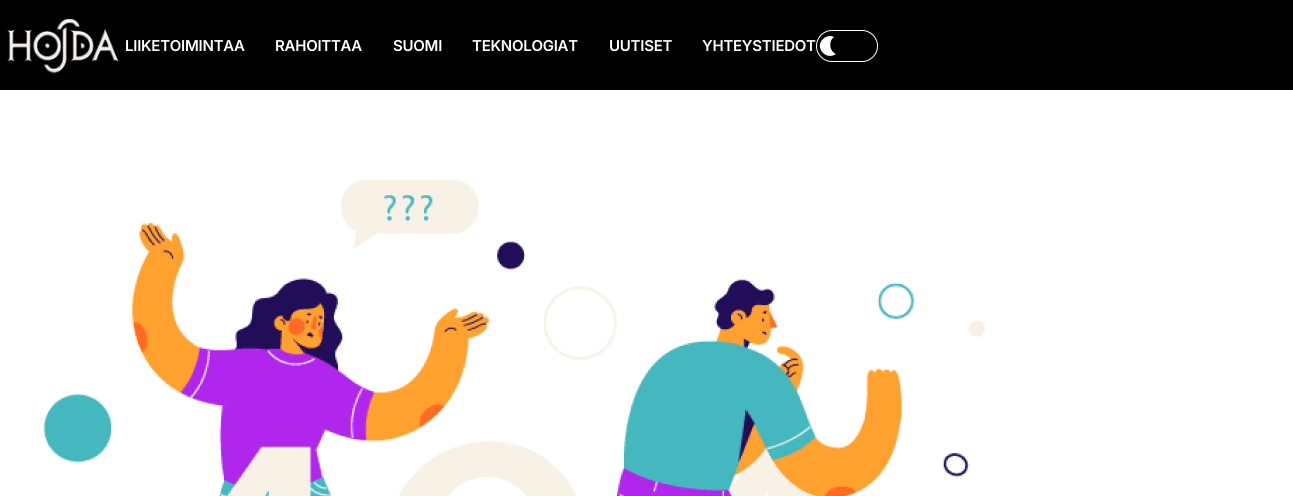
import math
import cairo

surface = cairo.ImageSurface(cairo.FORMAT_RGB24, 1293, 496)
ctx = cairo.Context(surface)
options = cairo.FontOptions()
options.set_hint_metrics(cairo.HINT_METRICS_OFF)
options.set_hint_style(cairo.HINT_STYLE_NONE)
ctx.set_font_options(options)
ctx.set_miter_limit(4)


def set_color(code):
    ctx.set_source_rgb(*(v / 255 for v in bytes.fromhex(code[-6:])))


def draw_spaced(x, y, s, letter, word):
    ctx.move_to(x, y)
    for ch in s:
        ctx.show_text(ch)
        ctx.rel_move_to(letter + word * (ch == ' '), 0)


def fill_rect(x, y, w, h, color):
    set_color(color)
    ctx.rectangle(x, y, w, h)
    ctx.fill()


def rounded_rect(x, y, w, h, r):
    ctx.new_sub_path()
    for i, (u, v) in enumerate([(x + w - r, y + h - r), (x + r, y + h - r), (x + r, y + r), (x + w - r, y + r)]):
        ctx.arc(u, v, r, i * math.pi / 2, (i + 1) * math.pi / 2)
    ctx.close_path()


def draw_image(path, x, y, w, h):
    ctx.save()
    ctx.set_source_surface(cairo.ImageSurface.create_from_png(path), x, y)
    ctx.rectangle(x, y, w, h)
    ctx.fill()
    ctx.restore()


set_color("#ffffff")
ctx.paint()
fill_rect(0, 0, 1293, 90, "#000000")
draw_image("assets/img1.png", 7, 19, 112, 55)
ctx.select_font_face("Inter SemiBold")
ctx.set_font_size(15)
set_color("#ffffff")
draw_spaced(125, 51, "LIIKETOIMINTAA", -0.25, 0)
draw_spaced(275, 51, "RAHOITTAA", -0.25, 0)
draw_spaced(393, 51, "SUOMI", -0.25, 0)
draw_spaced(472, 51, "TEKNOLOGIAT", -0.25, 0)
draw_spaced(609, 51, "UUTISET", -0.25, 0)
draw_spaced(702, 51, "YHTEYSTIEDOT", -0.25, 0)
rounded_rect(816.5, 30.5, 61, 31, 15.5)
ctx.set_line_width(1)
ctx.stroke()
ctx.new_path()
ctx.move_to(830, 36)
ctx.curve_to(827.5, 36, 825, 37, 823, 39)
ctx.curve_to(814, 47.5, 826, 61, 836, 54)
ctx.curve_to(829, 51, 828.5, 41, 834, 37)
ctx.curve_to(833, 36.5, 831.5, 36, 830, 36)
ctx.close_path()
ctx.fill()
draw_image("assets/img2.png", 43, 180, 943, 316)
surface.write_to_png("output.png")
